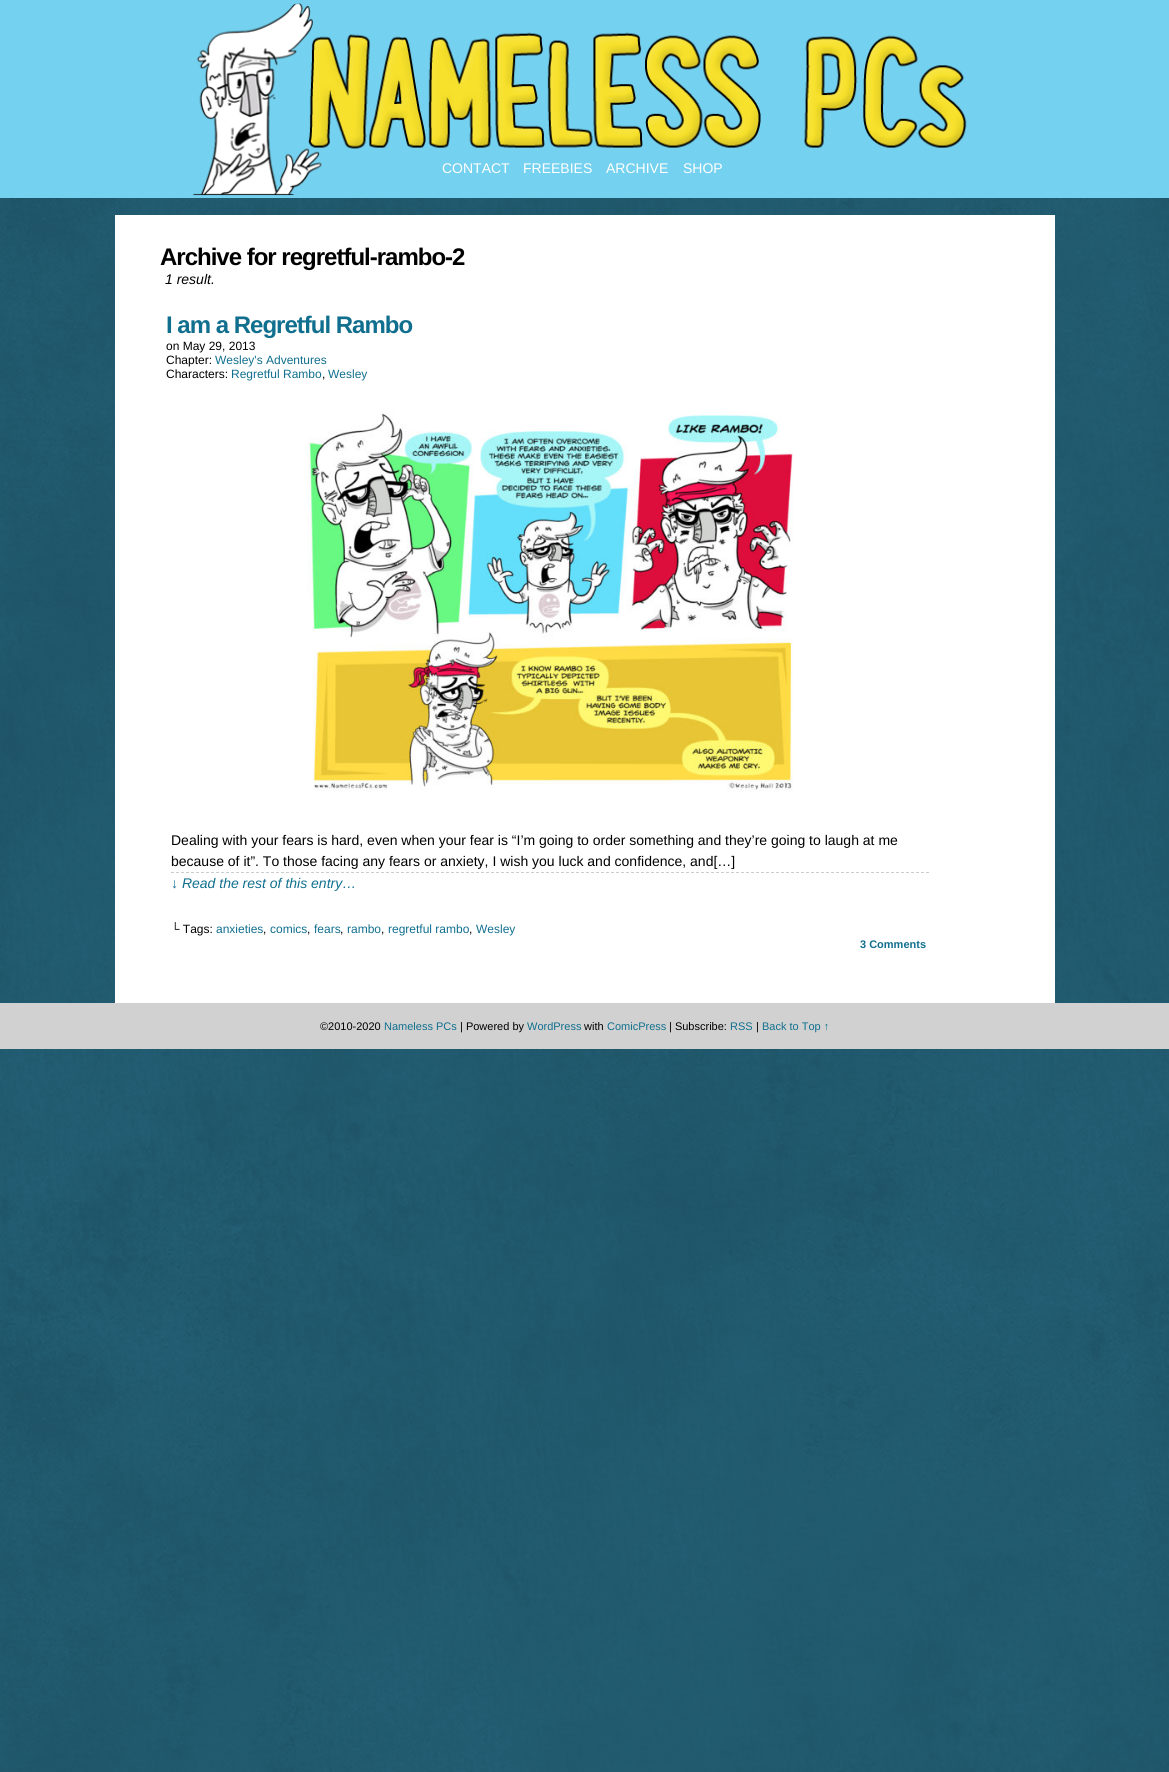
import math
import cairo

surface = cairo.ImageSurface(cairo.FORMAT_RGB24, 1169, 1772)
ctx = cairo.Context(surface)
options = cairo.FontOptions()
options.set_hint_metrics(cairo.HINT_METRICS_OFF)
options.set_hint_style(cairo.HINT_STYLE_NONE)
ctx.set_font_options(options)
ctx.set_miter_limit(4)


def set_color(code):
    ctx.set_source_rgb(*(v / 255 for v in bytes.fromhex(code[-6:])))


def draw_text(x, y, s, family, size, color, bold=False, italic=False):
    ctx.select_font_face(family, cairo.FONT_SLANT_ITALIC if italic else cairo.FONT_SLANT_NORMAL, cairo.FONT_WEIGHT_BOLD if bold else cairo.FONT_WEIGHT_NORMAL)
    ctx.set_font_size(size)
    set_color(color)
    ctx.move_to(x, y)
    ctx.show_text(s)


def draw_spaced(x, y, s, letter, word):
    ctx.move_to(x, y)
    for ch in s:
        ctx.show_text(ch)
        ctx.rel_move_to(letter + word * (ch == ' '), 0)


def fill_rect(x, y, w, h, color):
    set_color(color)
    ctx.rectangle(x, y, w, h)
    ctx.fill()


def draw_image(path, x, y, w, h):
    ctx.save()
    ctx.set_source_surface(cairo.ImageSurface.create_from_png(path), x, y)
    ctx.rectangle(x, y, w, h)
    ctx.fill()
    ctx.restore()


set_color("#ffffff")
ctx.paint()
draw_image("assets/img1.png", 0, 198, 1169, 1574)
fill_rect(0, 0, 1169, 198, "#74d1ef")
draw_image("assets/img2.png", 192, 3, 775, 193)
draw_text(442, 173, "CONTACT", "Liberation Sans", 14, "#ffffff")
draw_text(523, 173, "FREEBIES", "Liberation Sans", 14, "#ffffff")
draw_text(606, 173, "ARCHIVE", "Liberation Sans", 14, "#ffffff")
draw_text(683, 173, "SHOP", "Liberation Sans", 14, "#ffffff")
fill_rect(115, 215, 940, 788, "#ffffff")
ctx.select_font_face("Liberation Sans", cairo.FONT_SLANT_NORMAL, cairo.FONT_WEIGHT_BOLD)
ctx.set_font_size(24)
set_color("#000000")
draw_spaced(160, 265, "Archive for regretful-rambo-2", -1, 0)
draw_text(165, 284, "1 result.", "Liberation Sans", 14, "#000000", italic=True)
ctx.select_font_face("Liberation Sans", cairo.FONT_SLANT_NORMAL, cairo.FONT_WEIGHT_BOLD)
ctx.set_font_size(24)
set_color("#106f8e")
draw_spaced(166, 333, "I am a Regretful Rambo", -1, 0)
draw_text(166, 350, "on May 29, 2013", "Liberation Sans", 12, "#000000")
draw_text(166, 364, "Chapter:", "Liberation Sans", 12, "#000000")
draw_text(215, 364, "Wesley's Adventures", "Liberation Sans", 12, "#106f8e")
draw_text(166, 378, "Characters:", "Liberation Sans", 12, "#000000")
draw_text(231, 378, "Regretful Rambo", "Liberation Sans", 12, "#106f8e")
draw_text(322, 378, ",", "Liberation Sans", 12, "#000000")
draw_text(328, 378, "Wesley", "Liberation Sans", 12, "#106f8e")
draw_image("assets/img3.png", 307, 411, 487, 381)
draw_text(171, 845, "Dealing with your fears is hard, even when your fear is “I’m going to order something and they’re going to laugh at me", "Liberation Sans", 14, "#000000")
draw_text(171, 866, "because of it”. To those facing any fears or anxiety, I wish you luck and confidence, and[…]", "Liberation Sans", 14, "#000000")
ctx.new_path()
ctx.move_to(171, 872.5)
ctx.line_to(929, 872.5)
set_color("#cccccc")
ctx.set_line_width(1)
ctx.set_dash([3, 2])
ctx.stroke()
draw_text(171, 888, "↓ Read the rest of this entry…", "Liberation Sans", 14, "#106f8e", italic=True)
draw_text(171, 933, "└ Tags:", "Liberation Sans", 12, "#000000")
draw_text(216, 933, "anxieties", "Liberation Sans", 12, "#106f8e")
draw_text(263, 933, ",", "Liberation Sans", 12, "#000000")
draw_text(270, 933, "comics", "Liberation Sans", 12, "#106f8e")
draw_text(307, 933, ",", "Liberation Sans", 12, "#000000")
draw_text(314, 933, "fears", "Liberation Sans", 12, "#106f8e")
draw_text(340, 933, ",", "Liberation Sans", 12, "#000000")
draw_text(347, 933, "rambo", "Liberation Sans", 12, "#106f8e")
draw_text(381, 933, ",", "Liberation Sans", 12, "#000000")
draw_text(388, 933, "regretful rambo", "Liberation Sans", 12, "#106f8e")
draw_text(469, 933, ",", "Liberation Sans", 12, "#000000")
draw_text(476, 933, "Wesley", "Liberation Sans", 12, "#106f8e")
draw_text(860, 948, "3 Comments", "Liberation Sans", 11, "#106f8e", bold=True)
fill_rect(0, 1003, 1169, 46, "#d1d1d1")
draw_text(320, 1030, "©2010-2020", "Liberation Sans", 11, "#000000")
draw_text(384, 1030, "Nameless PCs", "Liberation Sans", 11, "#106f8e")
draw_text(460, 1030, "| Powered by", "Liberation Sans", 11, "#000000")
draw_text(527, 1030, "WordPress", "Liberation Sans", 11, "#106f8e")
draw_text(584, 1030, "with", "Liberation Sans", 11, "#000000")
draw_text(607, 1030, "ComicPress", "Liberation Sans", 11, "#106f8e")
draw_text(669, 1030, "| Subscribe:", "Liberation Sans", 11, "#000000")
draw_text(730, 1030, "RSS", "Liberation Sans", 11, "#106f8e")
draw_text(756, 1030, "|", "Liberation Sans", 11, "#000000")
draw_text(762, 1030, "Back to Top ↑", "Liberation Sans", 11, "#106f8e")
surface.write_to_png("output.png")
